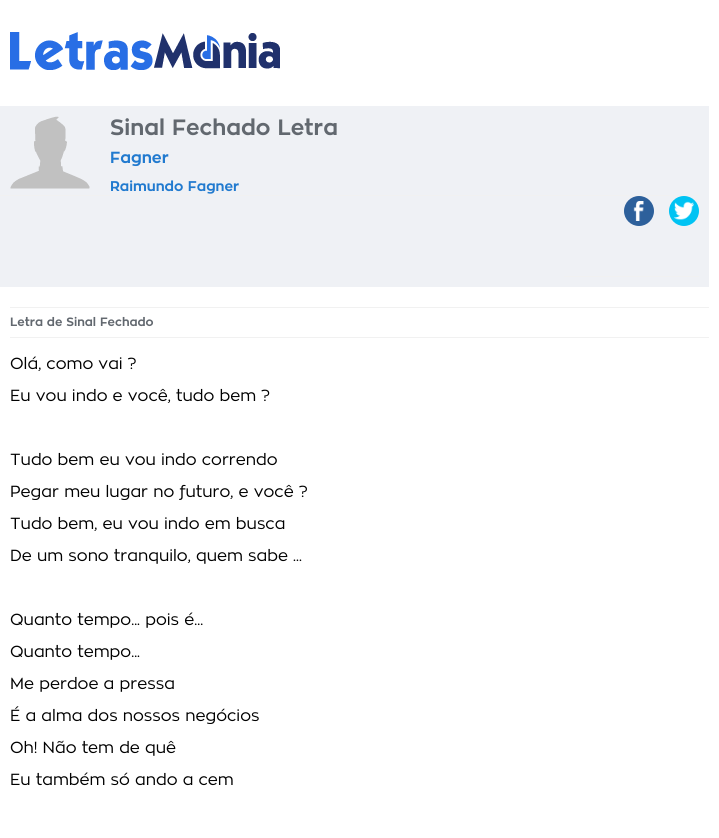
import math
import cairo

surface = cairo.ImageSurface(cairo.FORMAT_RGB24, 719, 838)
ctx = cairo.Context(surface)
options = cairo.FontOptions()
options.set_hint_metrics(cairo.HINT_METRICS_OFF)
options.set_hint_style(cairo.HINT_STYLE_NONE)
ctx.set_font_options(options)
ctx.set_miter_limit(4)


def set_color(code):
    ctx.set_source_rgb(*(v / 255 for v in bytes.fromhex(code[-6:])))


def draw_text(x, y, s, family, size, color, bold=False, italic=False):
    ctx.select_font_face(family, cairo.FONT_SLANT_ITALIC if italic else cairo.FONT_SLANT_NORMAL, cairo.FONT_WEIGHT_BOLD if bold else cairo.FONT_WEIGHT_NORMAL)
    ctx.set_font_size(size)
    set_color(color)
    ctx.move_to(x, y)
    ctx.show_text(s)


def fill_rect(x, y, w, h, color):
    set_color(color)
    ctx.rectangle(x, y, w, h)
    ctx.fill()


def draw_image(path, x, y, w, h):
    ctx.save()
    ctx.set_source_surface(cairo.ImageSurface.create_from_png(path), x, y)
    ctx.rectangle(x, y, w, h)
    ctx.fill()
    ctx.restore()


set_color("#ffffff")
ctx.paint()
draw_image("assets/img1.png", 10, 32, 270, 38)
fill_rect(0, 106, 709, 181, "#eff1f5")
draw_image("assets/img2.png", 10, 116, 80, 73)
fill_rect(0, 195, 699, 1, "#f1f1f1")
draw_text(110, 135, "Sinal Fechado Letra", "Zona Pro", 22, "#62686f", bold=True)
draw_text(110, 163, "Fagner", "Zona Pro", 16, "#217acf", bold=True)
draw_text(110, 191, "Raimundo Fagner", "Zona Pro", 14, "#217acf", bold=True)
fill_rect(564, 276, 135, 1, "#f1f1f1")
set_color("#2d609b")
ctx.new_path()
ctx.arc(639, 211, 15, 0, 2 * math.pi)
ctx.fill()
draw_image("assets/img3.png", 633, 201, 11, 20)
set_color("#00c3f3")
ctx.arc(684, 211, 15, 0, 2 * math.pi)
ctx.fill()
draw_image("assets/img4.png", 674, 201, 20, 19)
fill_rect(10, 307, 699, 1, "#f1f1f1")
fill_rect(10, 337, 699, 1, "#f1f1f1")
draw_text(10, 326, "Letra de Sinal Fechado", "Zona Pro", 12, "#62686f", bold=True)
draw_text(10, 369, "Olá, como vai ?", "Zona Pro", 16, "#000000")
draw_text(10, 401, "Eu vou indo e você, tudo bem ?", "Zona Pro", 16, "#000000")
draw_text(10, 465, "Tudo bem eu vou indo correndo", "Zona Pro", 16, "#000000")
draw_text(10, 497, "Pegar meu lugar no futuro, e você ?", "Zona Pro", 16, "#000000")
draw_text(10, 529, "Tudo bem, eu vou indo em busca", "Zona Pro", 16, "#000000")
draw_text(10, 561, "De um sono tranquilo, quem sabe ...", "Zona Pro", 16, "#000000")
draw_text(10, 625, "Quanto tempo... pois é...", "Zona Pro", 16, "#000000")
draw_text(10, 657, "Quanto tempo...", "Zona Pro", 16, "#000000")
draw_text(10, 689, "Me perdoe a pressa", "Zona Pro", 16, "#000000")
draw_text(10, 721, "É a alma dos nossos negócios", "Zona Pro", 16, "#000000")
draw_text(10, 753, "Oh! Não tem de quê", "Zona Pro", 16, "#000000")
draw_text(10, 785, "Eu também só ando a cem", "Zona Pro", 16, "#000000")
surface.write_to_png("output.png")
